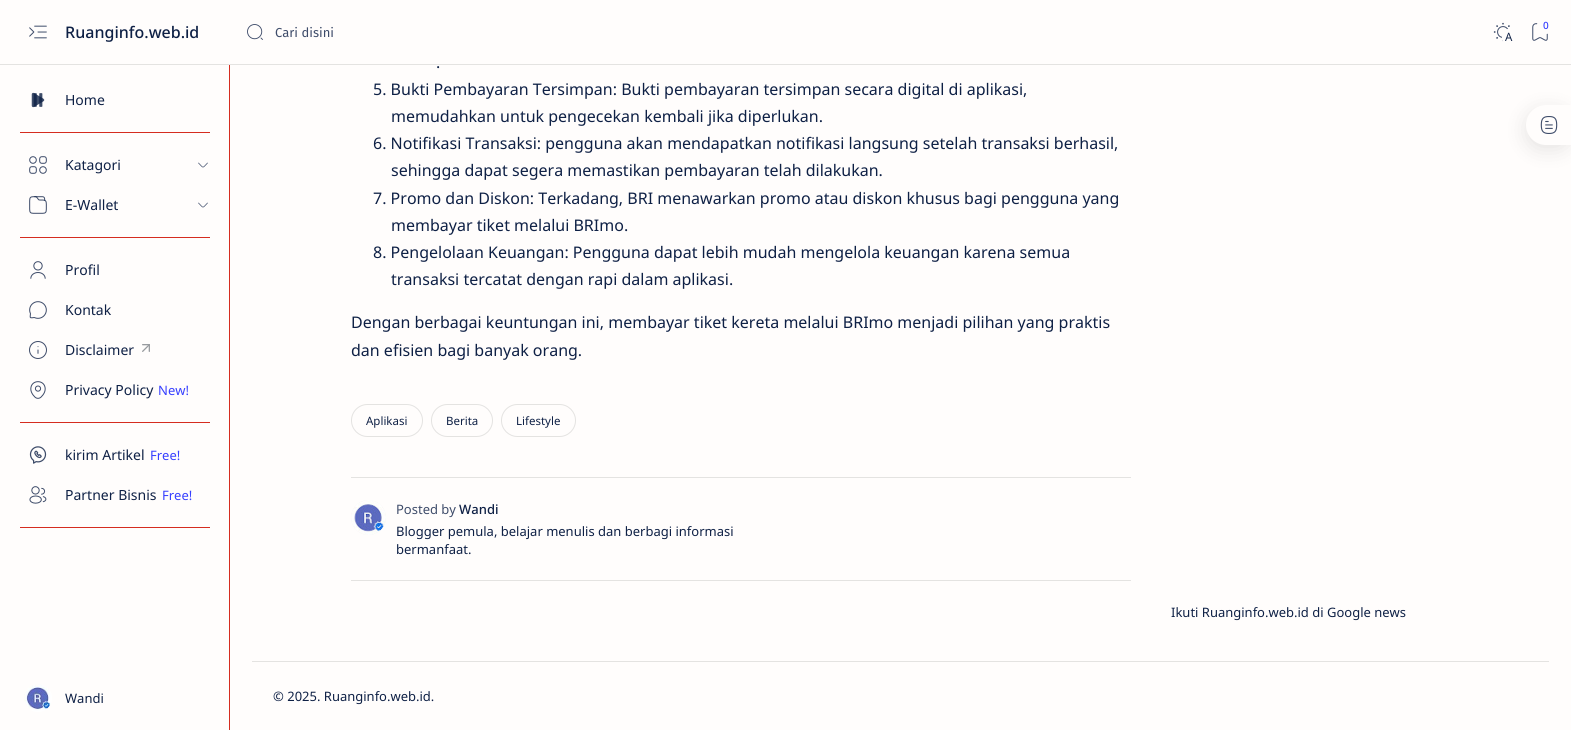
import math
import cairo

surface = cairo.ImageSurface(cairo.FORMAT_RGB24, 1571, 730)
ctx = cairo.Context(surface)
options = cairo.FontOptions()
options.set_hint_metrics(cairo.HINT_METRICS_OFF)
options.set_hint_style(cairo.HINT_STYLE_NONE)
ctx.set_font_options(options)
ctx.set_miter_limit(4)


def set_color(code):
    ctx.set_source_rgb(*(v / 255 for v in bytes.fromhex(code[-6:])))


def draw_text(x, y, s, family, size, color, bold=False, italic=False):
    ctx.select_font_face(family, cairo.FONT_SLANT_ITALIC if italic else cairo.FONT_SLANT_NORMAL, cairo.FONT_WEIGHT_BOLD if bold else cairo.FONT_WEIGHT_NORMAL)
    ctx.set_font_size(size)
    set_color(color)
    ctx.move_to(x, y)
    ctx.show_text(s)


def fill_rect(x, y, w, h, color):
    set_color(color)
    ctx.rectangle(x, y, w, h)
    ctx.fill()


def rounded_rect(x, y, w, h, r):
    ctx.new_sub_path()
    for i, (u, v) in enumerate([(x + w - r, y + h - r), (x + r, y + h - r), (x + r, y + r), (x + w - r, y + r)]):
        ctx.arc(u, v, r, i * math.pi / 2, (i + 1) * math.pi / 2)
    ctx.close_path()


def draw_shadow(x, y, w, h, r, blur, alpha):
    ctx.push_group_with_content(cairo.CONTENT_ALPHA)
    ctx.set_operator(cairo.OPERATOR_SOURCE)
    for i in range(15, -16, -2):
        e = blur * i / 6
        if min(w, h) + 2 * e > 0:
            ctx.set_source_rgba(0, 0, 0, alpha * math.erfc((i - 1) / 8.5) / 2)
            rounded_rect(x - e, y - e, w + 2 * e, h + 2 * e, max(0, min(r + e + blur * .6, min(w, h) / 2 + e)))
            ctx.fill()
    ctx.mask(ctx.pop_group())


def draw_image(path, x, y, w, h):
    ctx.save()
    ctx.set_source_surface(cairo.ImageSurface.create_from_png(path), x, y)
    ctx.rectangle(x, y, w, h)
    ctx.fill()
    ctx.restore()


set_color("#fffdfc")
ctx.paint()
fill_rect(0, 64, 1571, 1, "#e4e3e1")
draw_image("assets/img1.png", 29, 25, 18, 14)
draw_text(65, 38, "Ruanginfo.web.id", "Noto Sans Medium", 16, "#0e2045")
draw_image("assets/img2.png", 247, 24, 16, 16)
draw_text(275, 37, "Cari disini", "Fira Sans", 13, "#3e4c6a")
draw_image("assets/img3.png", 1532, 23, 16, 18)
set_color("#fffdfc")
ctx.arc(1546, 25, 9, 0, 2 * math.pi)
ctx.fill()
draw_text(1543, 29, "0", "Noto Sans Medium", 10, "#3740ff")
draw_image("assets/img4.png", 1493, 22, 17, 20)
set_color("#fffdfc")
rounded_rect(1502, 29, 14, 16, 6)
ctx.fill()
draw_text(1505, 41, "A", "Noto Sans", 11.5, "#0e2045")
draw_image("assets/img5.png", 31, 92, 14, 16)
draw_text(65, 105, "Home", "Noto Sans", 14, "#0e2045")
fill_rect(20, 132, 190, 1, "#d52c1f")
draw_image("assets/img6.png", 29, 156, 18, 18)
draw_text(65, 170, "Katagori", "Noto Sans", 14, "#0e2045")
ctx.new_path()
ctx.move_to(207.5, 163)
ctx.curve_to(202, 168.5, 204, 168.5, 198.5, 163)
set_color("#3e4c6a")
ctx.set_line_width(0.7)
ctx.set_line_cap(cairo.LINE_CAP_ROUND)
ctx.set_line_join(cairo.LINE_JOIN_ROUND)
ctx.stroke()
draw_image("assets/img7.png", 29, 196, 18, 18)
draw_text(65, 210, "E-Wallet", "Noto Sans", 14, "#0e2045")
ctx.new_path()
ctx.move_to(207.5, 203)
ctx.curve_to(202, 208.5, 204, 208.5, 198.5, 203)
set_color("#3e4c6a")
ctx.stroke()
fill_rect(20, 237, 190, 1, "#d52c1f")
draw_image("assets/img8.png", 30, 261, 16, 18)
draw_text(65, 275, "Profil", "Noto Sans", 14, "#0e2045")
draw_image("assets/img9.png", 29, 301, 18, 18)
draw_text(65, 315, "Kontak", "Noto Sans", 14, "#0e2045")
draw_image("assets/img10.png", 29, 341, 18, 18)
draw_text(65, 355, "Disclaimer", "Noto Sans", 14, "#0e2045")
draw_image("assets/img11.png", 142, 344, 8, 8)
draw_image("assets/img12.png", 30, 381, 16, 18)
draw_text(65, 395, "Privacy Policy", "Noto Sans", 14, "#0e2045")
draw_text(158, 395, "New!", "Noto Sans", 13, "#3740ff")
fill_rect(20, 422, 190, 1, "#d52c1f")
draw_image("assets/img13.png", 29, 446, 18, 18)
draw_text(65, 460, "kirim Artikel", "Noto Sans", 14, "#0e2045")
draw_text(150, 460, "Free!", "Noto Sans", 13, "#3740ff")
draw_image("assets/img14.png", 29, 486, 18, 18)
draw_text(65, 500, "Partner Bisnis", "Noto Sans", 14, "#0e2045")
draw_text(162, 500, "Free!", "Noto Sans", 13, "#3740ff")
fill_rect(20, 527, 190, 1, "#d52c1f")
draw_image("assets/img15.png", 24, 684, 28, 28)
draw_text(65, 703, "Wandi", "Noto Sans", 13, "#0e2045")
fill_rect(229, 65, 1, 665, "#d52c1f")
draw_text(436, 68, ".", "Noto Sans", 16, "#0e2045")
draw_text(373, 95, "5. Bukti Pembayaran Tersimpan: Bukti pembayaran tersimpan secara digital di aplikasi,", "Noto Sans", 16, "#0e2045")
draw_text(391, 122, "memudahkan untuk pengecekan kembali jika diperlukan.", "Noto Sans", 16, "#0e2045")
draw_text(373, 149, "6. Notifikasi Transaksi: pengguna akan mendapatkan notifikasi langsung setelah transaksi berhasil,", "Noto Sans", 16, "#0e2045")
draw_text(391, 176, "sehingga dapat segera memastikan pembayaran telah dilakukan.", "Noto Sans", 16, "#0e2045")
draw_text(373, 204, "7. Promo dan Diskon: Terkadang, BRI menawarkan promo atau diskon khusus bagi pengguna yang", "Noto Sans", 16, "#0e2045")
draw_text(391, 231, "membayar tiket melalui BRImo.", "Noto Sans", 16, "#0e2045")
draw_text(373, 258, "8. Pengelolaan Keuangan: Pengguna dapat lebih mudah mengelola keuangan karena semua", "Noto Sans", 16, "#0e2045")
draw_text(391, 285, "transaksi tercatat dengan rapi dalam aplikasi.", "Noto Sans", 16, "#0e2045")
draw_text(351, 328, "Dengan berbagai keuntungan ini, membayar tiket kereta melalui BRImo menjadi pilihan yang praktis", "Noto Sans", 16, "#0e2045")
draw_text(351, 356, "dan efisien bagi banyak orang.", "Noto Sans", 16, "#0e2045")
rounded_rect(351.5, 404.5, 71, 32, 16)
set_color("#e4e3e1")
ctx.set_line_width(1)
ctx.set_line_cap(cairo.LINE_CAP_BUTT)
ctx.set_line_join(cairo.LINE_JOIN_MITER)
ctx.stroke()
draw_text(366, 425, "Aplikasi", "Noto Sans", 11.5, "#0e2045")
rounded_rect(431.5, 404.5, 61, 32, 16)
set_color("#e4e3e1")
ctx.stroke()
draw_text(446, 425, "Berita", "Noto Sans", 11.5, "#0e2045")
rounded_rect(501.5, 404.5, 74, 32, 16)
set_color("#e4e3e1")
ctx.stroke()
draw_text(516, 425, "Lifestyle", "Noto Sans", 11.5, "#0e2045")
fill_rect(351, 477, 780, 1, "#e4e3e1")
fill_rect(351, 580, 780, 1, "#e4e3e1")
set_color("#f5f3f2")
ctx.new_path()
ctx.arc(368.5, 517.5, 17.5, 0, 2 * math.pi)
ctx.fill()
draw_image("assets/img16.png", 351, 500, 35, 35)
draw_text(396, 514, "Posted by", "Noto Sans", 13, "#3e4c6a")
draw_text(459, 514, "Wandi", "Noto Sans Medium", 13, "#0e2045")
draw_text(396, 536, "Blogger pemula, belajar menulis dan berbagi informasi", "Noto Sans", 13, "#0e2045")
draw_text(396, 554, "bermanfaat.", "Noto Sans", 13, "#0e2045")
set_color("#000000")
draw_shadow(1526, 110, 45, 40, 20, 10, 0.1)
set_color("#fffdfc")
ctx.new_path()
ctx.move_to(1546, 105)
ctx.line_to(1571, 105)
ctx.line_to(1571, 145)
ctx.line_to(1546, 145)
ctx.curve_to(1535, 145, 1526, 136, 1526, 125)
ctx.curve_to(1526, 114, 1535, 105, 1546, 105)
ctx.close_path()
ctx.fill()
draw_image("assets/img17.png", 1540, 116, 18, 18)
draw_text(1171, 617, "Ikuti Ruanginfo.web.id di Google news", "Noto Sans", 13, "#0e2045")
fill_rect(252, 661, 1297, 1, "#e4e3e1")
draw_text(273, 701, "© 2025. Ruanginfo.web.id.", "Noto Sans", 13, "#0e2045")
surface.write_to_png("output.png")
